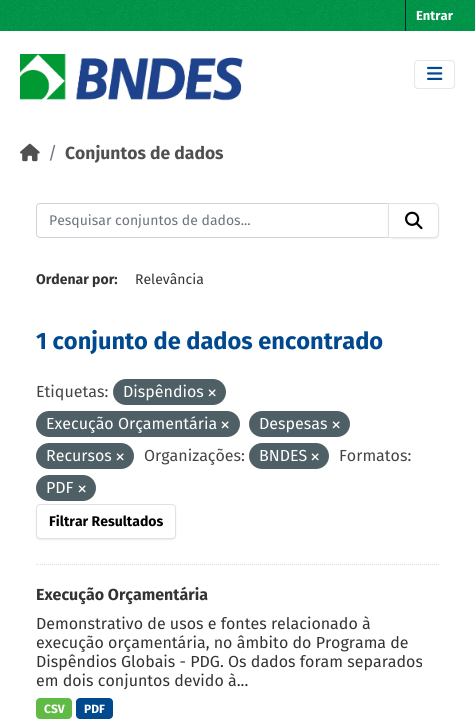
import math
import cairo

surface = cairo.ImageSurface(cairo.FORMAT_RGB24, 475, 720)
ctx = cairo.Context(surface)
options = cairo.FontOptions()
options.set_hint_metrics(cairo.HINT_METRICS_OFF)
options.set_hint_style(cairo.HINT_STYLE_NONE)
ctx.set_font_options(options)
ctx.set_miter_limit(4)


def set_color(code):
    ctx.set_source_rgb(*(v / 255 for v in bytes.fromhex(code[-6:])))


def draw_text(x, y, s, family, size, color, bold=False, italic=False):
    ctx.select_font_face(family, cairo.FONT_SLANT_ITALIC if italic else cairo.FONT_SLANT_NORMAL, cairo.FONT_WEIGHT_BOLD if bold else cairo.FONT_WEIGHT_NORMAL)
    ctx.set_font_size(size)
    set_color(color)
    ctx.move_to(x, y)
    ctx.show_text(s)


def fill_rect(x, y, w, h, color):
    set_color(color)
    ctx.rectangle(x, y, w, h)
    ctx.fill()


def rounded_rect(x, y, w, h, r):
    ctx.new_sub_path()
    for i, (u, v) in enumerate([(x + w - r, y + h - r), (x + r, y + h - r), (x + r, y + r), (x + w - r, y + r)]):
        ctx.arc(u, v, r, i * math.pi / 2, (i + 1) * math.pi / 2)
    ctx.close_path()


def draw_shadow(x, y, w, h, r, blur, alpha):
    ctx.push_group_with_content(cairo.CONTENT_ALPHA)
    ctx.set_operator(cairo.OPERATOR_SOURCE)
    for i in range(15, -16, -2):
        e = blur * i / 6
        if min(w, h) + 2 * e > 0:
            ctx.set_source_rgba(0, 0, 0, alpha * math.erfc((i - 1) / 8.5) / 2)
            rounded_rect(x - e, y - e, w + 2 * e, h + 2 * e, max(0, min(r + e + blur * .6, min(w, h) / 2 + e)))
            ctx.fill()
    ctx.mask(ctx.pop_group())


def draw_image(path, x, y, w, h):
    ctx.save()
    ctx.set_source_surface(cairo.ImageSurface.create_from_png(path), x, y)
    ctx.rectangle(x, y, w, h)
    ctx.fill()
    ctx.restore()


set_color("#ffffff")
ctx.paint()
fill_rect(0, 0, 475, 31, "#00984a")
draw_image("assets/img1.png", 0, 0, 475, 31)
fill_rect(405, 0, 1, 31, "#00232e")
draw_text(416, 20, "Entrar", "Fira Sans", 13, "#ffffff", bold=True)
draw_image("assets/img2.png", 20, 54, 223, 47)
rounded_rect(414.5, 60.5, 40, 28, 3.5)
set_color("#e6e6e6")
ctx.set_line_width(1)
ctx.stroke()
draw_image("assets/img3.png", 427, 66, 16, 14)
draw_image("assets/img4.png", 20, 143, 20, 19)
draw_text(48, 159, "/", "Fira Sans", 17.5, "#6c757d")
draw_text(65, 159, "Conjuntos de dados", "Fira Sans", 17.5, "#505050", bold=True)
ctx.new_path()
ctx.move_to(36, 564.5)
ctx.line_to(439, 564.5)
set_color("#dddddd")
ctx.set_dash([1, 1])
ctx.stroke()
ctx.new_path()
ctx.move_to(40, 203.5)
ctx.line_to(388.5, 203.5)
ctx.line_to(388.5, 237.5)
ctx.line_to(40, 237.5)
ctx.curve_to(38, 237.5, 36.5, 236, 36.5, 234)
ctx.line_to(36.5, 207)
ctx.curve_to(36.5, 205, 38, 203.5, 40, 203.5)
ctx.close_path()
set_color("#ced4da")
ctx.set_dash([])
ctx.stroke()
draw_text(49, 225, "Pesquisar conjuntos de dados...", "Fira Sans", 14, "#6c757d")
set_color("#000000")
draw_shadow(388, 204, 51, 35, 5, 0.5, 0.07)
set_color("#ffffff")
ctx.new_path()
ctx.move_to(388.5, 203.5)
ctx.line_to(434, 203.5)
ctx.curve_to(436.5, 203.5, 438.5, 205.5, 438.5, 208)
ctx.line_to(438.5, 233)
ctx.curve_to(438.5, 235.5, 436.5, 237.5, 434, 237.5)
ctx.line_to(388.5, 237.5)
ctx.close_path()
ctx.fill_preserve()
set_color("#dee2e6")
ctx.stroke()
draw_image("assets/img5.png", 405, 211, 18, 19)
draw_text(36, 284, "Ordenar por:", "Fira Sans", 14, "#333333", bold=True)
draw_text(135, 284, "Relevância", "Fira Sans", 14, "#333333")
draw_text(36, 349, "1 conjunto de dados encontrado", "Fira Sans", 23.6, "#01498f", bold=True)
draw_text(36, 397, "Etiquetas:", "Fira Sans", 16, "#444444")
set_color("#4e5f65")
rounded_rect(113, 379, 113, 26, 13)
ctx.fill()
draw_text(123, 397, "Dispêndios", "Fira Sans", 16, "#ffffff")
draw_image("assets/img6.png", 208, 389, 8, 8)
set_color("#4e5f65")
rounded_rect(36, 411, 204, 26, 13)
ctx.fill()
draw_text(46, 429, "Execução Orçamentária", "Fira Sans", 16, "#ffffff")
draw_image("assets/img6.png", 221, 421, 8, 8)
set_color("#4e5f65")
rounded_rect(249, 411, 101, 26, 13)
ctx.fill()
draw_text(259, 429, "Despesas", "Fira Sans", 16, "#ffffff")
draw_image("assets/img6.png", 332, 421, 8, 8)
set_color("#4e5f65")
rounded_rect(36, 443, 98, 26, 13)
ctx.fill()
draw_text(46, 461, "Recursos", "Fira Sans", 16, "#ffffff")
draw_image("assets/img6.png", 116, 453, 8, 8)
draw_text(144, 461, "Organizações:", "Fira Sans", 16, "#444444")
set_color("#4e5f65")
rounded_rect(249, 443, 80, 26, 13)
ctx.fill()
draw_text(259, 461, "BNDES", "Fira Sans", 16, "#ffffff")
draw_image("assets/img6.png", 311, 453, 8, 8)
draw_text(339, 461, "Formatos:", "Fira Sans", 16, "#444444")
set_color("#4e5f65")
rounded_rect(36, 475, 60, 26, 13)
ctx.fill()
draw_text(46, 493, "PDF", "Fira Sans", 16, "#ffffff")
draw_image("assets/img6.png", 78, 485, 8, 8)
set_color("#000000")
draw_shadow(36, 505, 140, 35, 4, 0.5, 0.07)
set_color("#ffffff")
rounded_rect(36.5, 504.5, 139, 34, 3.5)
ctx.fill_preserve()
set_color("#dee2e6")
ctx.stroke()
draw_text(49, 526, "Filtrar Resultados", "Fira Sans", 14, "#000000", bold=True)
draw_text(36, 600, "Execução Orçamentária", "Fira Sans", 16, "#333333", bold=True)
draw_text(36, 629, "Demonstrativo de usos e fontes relacionado à", "Fira Sans", 16, "#333333")
draw_text(36, 648, "execução orçamentária, no âmbito do Programa de", "Fira Sans", 16, "#333333")
draw_text(36, 667, "Dispêndios Globais - PDG. Os dados foram separados", "Fira Sans", 16, "#333333")
draw_text(36, 686, "em dois conjuntos devido à...", "Fira Sans", 16, "#333333")
set_color("#60bb46")
rounded_rect(36, 698, 36, 21, 4)
ctx.fill()
draw_text(44, 713, "CSV", "Fira Sans", 12, "#ffffff", bold=True)
set_color("#01498f")
rounded_rect(76, 698, 37, 21, 4)
ctx.fill()
draw_text(84, 713, "PDF", "Fira Sans", 12, "#ffffff", bold=True)
surface.write_to_png("output.png")
